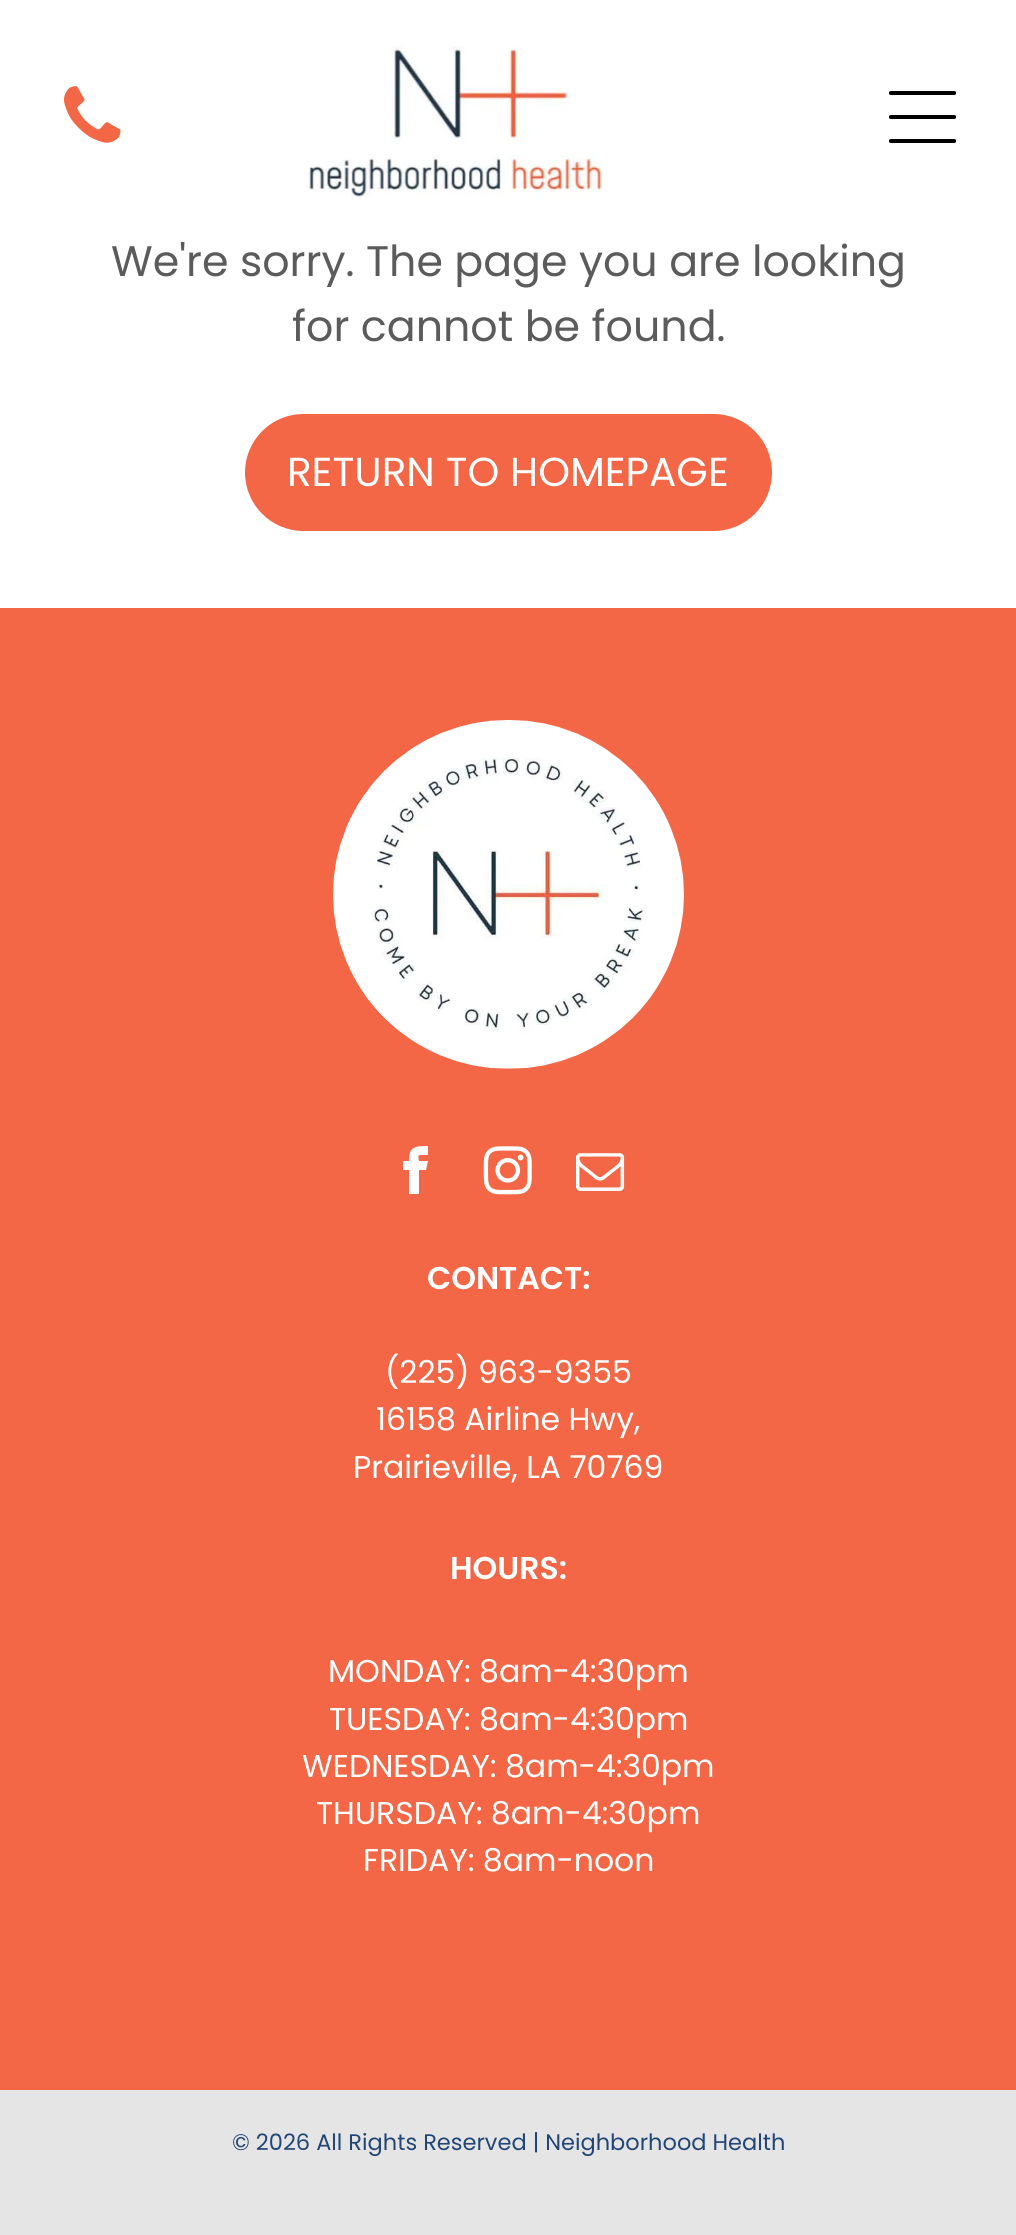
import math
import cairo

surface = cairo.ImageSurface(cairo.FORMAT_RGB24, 1016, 2235)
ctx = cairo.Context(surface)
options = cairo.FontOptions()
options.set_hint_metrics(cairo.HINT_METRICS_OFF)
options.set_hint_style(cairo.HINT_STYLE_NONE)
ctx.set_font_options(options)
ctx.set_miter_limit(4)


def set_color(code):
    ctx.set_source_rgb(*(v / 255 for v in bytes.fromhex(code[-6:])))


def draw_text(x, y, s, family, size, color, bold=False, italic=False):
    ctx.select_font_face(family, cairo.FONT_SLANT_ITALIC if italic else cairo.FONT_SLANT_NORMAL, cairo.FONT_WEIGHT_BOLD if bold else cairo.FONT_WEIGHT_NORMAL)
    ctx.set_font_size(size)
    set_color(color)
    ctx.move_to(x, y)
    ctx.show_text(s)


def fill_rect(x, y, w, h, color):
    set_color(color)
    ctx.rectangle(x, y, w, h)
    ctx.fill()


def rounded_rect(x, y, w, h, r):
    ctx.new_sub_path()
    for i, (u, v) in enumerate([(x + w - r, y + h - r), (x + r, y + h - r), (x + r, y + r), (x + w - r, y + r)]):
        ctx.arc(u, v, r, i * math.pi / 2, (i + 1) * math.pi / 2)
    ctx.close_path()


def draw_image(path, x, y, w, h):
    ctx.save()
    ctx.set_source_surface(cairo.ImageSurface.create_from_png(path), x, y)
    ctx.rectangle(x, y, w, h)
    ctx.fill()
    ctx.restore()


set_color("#ffffff")
ctx.paint()
draw_image("assets/img1.png", 64, 86, 57, 57)
draw_image("assets/img2.png", 307, 46, 295, 153)
ctx.save()
ctx.rectangle(889, 83, 67, 68)
ctx.clip()
set_color("#000000")
ctx.new_path()
ctx.move_to(891, 91)
ctx.curve_to(888, 91, 888, 95, 891, 95)
ctx.line_to(954, 95)
ctx.curve_to(957, 95, 957, 91, 954, 91)
ctx.close_path()
ctx.move_to(891, 115)
ctx.curve_to(888, 115, 888, 119, 891, 119)
ctx.line_to(954, 119)
ctx.curve_to(957, 119, 957, 115, 954, 115)
ctx.close_path()
ctx.move_to(891, 139)
ctx.curve_to(888, 139, 888, 143, 891, 143)
ctx.line_to(954, 143)
ctx.curve_to(957, 143, 957, 139, 954, 139)
ctx.close_path()
ctx.fill()
ctx.restore()
draw_text(111, 276, "We're sorry. The page you are looking", "Poppins", 42.75, "#5b5b5b")
draw_text(292, 341, "for cannot be found.", "Poppins", 42.75, "#5b5b5b")
set_color("#f36746")
rounded_rect(245, 414, 527, 117, 58.5)
ctx.fill()
draw_text(287, 486, "RETURN TO HOMEPAGE", "Poppins", 40.5, "#ffffff")
fill_rect(0, 608, 1016, 1482, "#f36746")
draw_image("assets/img3.png", 333, 720, 351, 349)
set_color("#ffffff")
ctx.new_path()
ctx.move_to(420, 1155)
ctx.line_to(428, 1155)
ctx.line_to(428, 1146)
ctx.curve_to(414, 1146, 409, 1147, 409, 1161)
ctx.line_to(403, 1161)
ctx.line_to(403, 1170)
ctx.line_to(409, 1170)
ctx.line_to(409, 1194)
ctx.line_to(419, 1194)
ctx.line_to(419, 1170)
ctx.line_to(426, 1170)
ctx.line_to(428, 1161)
ctx.line_to(419, 1161)
ctx.curve_to(419, 1160, 417, 1155, 420, 1155)
ctx.close_path()
ctx.fill()
draw_image("assets/img4.png", 483, 1146, 49, 49)
draw_image("assets/img5.png", 576, 1153, 49, 38)
draw_text(427, 1289, "CONTACT:", "Poppins SemiBold", 31.5, "#ffffff")
draw_text(385, 1383, "(225) 963-9355", "Poppins", 31.5, "#ffffff")
draw_text(376, 1430, "16158 Airline Hwy,", "Poppins", 31.5, "#ffffff")
draw_text(353, 1478, "Prairieville, LA 70769", "Poppins", 31.5, "#ffffff")
draw_text(450, 1579, "HOURS:", "Poppins SemiBold", 31.5, "#ffffff")
draw_text(328, 1682, "MONDAY: 8am-4:30pm", "Poppins", 31.5, "#ffffff")
draw_text(329, 1730, "TUESDAY: 8am-4:30pm", "Poppins", 31.5, "#ffffff")
draw_text(302, 1777, "WEDNESDAY: 8am-4:30pm", "Poppins", 31.5, "#ffffff")
draw_text(316, 1824, "THURSDAY: 8am-4:30pm", "Poppins", 31.5, "#ffffff")
draw_text(363, 1871, "FRIDAY: 8am-noon", "Poppins", 31.5, "#ffffff")
fill_rect(0, 2090, 1016, 145, "#e5e5e5")
draw_text(232, 2150, "© 2026 All Rights Reserved | Neighborhood Health", "Poppins", 22.5, "#224676")
surface.write_to_png("output.png")
